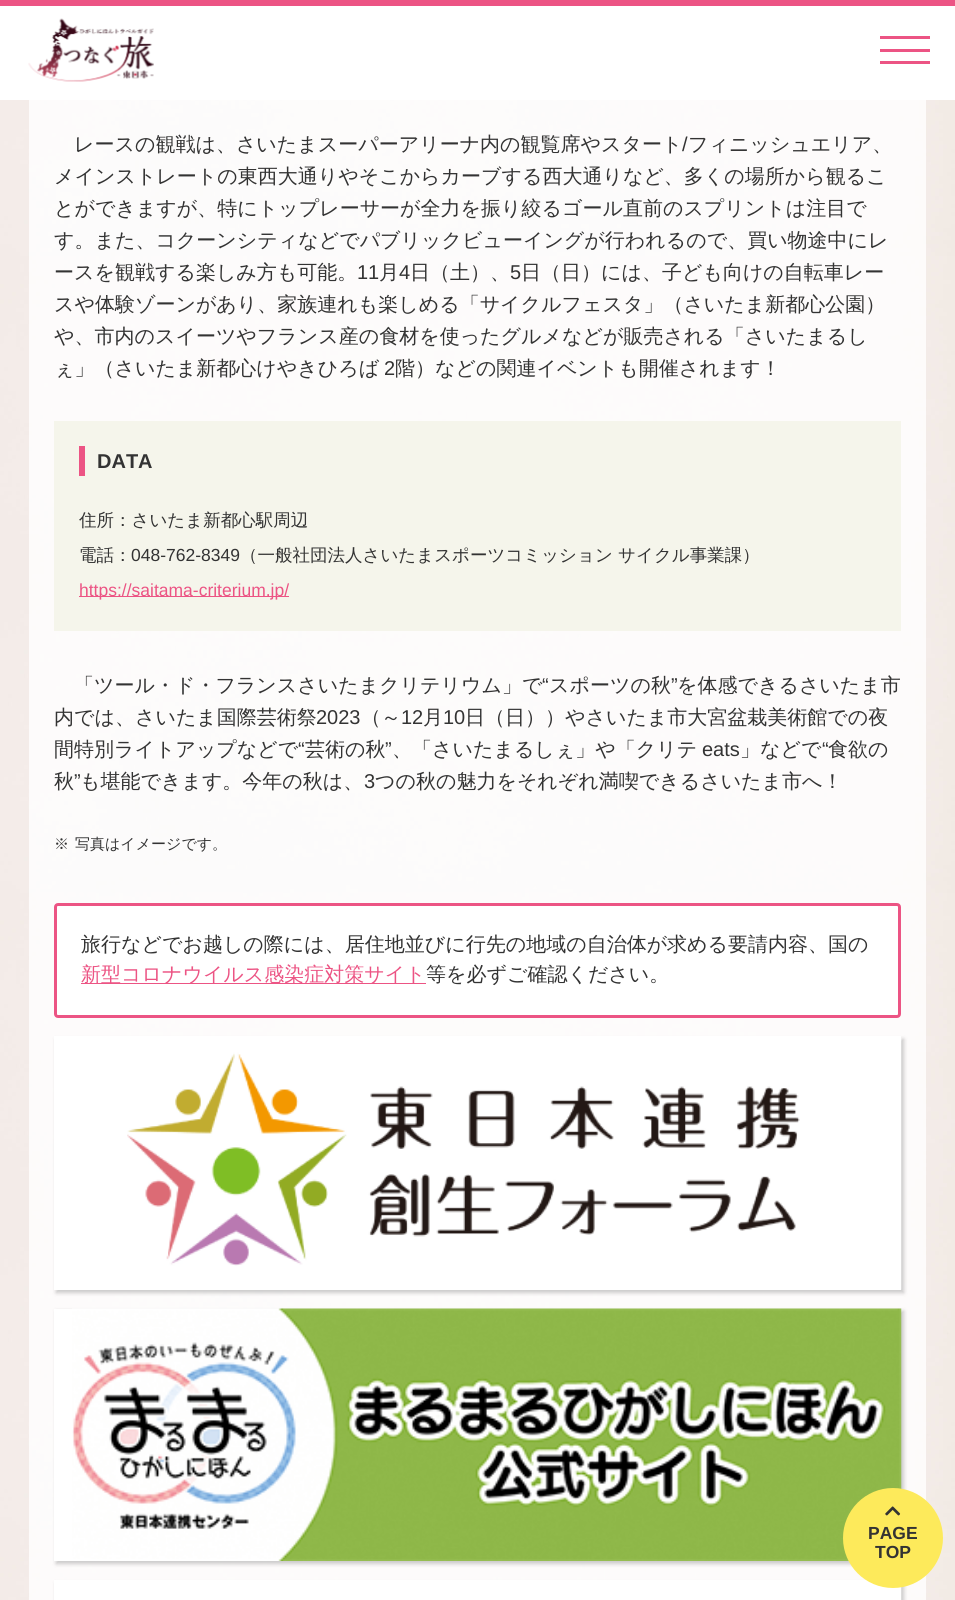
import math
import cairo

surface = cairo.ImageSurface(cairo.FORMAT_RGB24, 955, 1600)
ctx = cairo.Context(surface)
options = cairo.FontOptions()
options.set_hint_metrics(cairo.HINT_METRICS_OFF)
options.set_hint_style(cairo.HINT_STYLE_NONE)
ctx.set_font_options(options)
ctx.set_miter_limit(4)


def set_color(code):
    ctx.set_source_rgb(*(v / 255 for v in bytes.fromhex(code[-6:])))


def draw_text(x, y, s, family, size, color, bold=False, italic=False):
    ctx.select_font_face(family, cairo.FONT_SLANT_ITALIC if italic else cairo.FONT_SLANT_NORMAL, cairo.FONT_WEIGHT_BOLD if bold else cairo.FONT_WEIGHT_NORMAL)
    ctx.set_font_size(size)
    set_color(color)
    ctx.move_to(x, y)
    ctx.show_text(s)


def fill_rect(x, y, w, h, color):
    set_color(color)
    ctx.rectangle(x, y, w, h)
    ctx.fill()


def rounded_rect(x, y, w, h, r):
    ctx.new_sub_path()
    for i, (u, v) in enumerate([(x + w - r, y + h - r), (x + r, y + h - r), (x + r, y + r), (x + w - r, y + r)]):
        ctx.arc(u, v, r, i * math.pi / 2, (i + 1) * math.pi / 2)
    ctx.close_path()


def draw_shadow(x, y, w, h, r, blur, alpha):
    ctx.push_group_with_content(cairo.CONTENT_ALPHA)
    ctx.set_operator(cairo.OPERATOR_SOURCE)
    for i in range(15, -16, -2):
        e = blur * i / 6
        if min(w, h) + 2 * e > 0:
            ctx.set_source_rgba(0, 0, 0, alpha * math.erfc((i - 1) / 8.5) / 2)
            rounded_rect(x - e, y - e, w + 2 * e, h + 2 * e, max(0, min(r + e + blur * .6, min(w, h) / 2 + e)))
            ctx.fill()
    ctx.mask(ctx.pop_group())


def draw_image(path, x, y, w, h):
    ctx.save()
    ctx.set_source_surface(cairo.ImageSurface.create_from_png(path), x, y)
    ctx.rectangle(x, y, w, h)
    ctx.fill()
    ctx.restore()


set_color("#ffffff")
ctx.paint()
fill_rect(0, 0, 955, 6, "#ec5484")
draw_image("assets/img1.png", 28, 18, 126, 64)
fill_rect(880, 36, 50, 3, "#ec5484")
fill_rect(880, 49, 50, 3, "#ec5484")
fill_rect(880, 61, 50, 3, "#ec5484")
draw_image("assets/img2.png", 0, 100, 955, 1500)
draw_text(74, 151, "レースの観戦は、さいたまスーパーアリーナ内の観覧席やスタート", "WenQuanYi Zen Hei Medium", 20, "#333333")
draw_text(682, 151, "/", "Liberation Sans", 20, "#333333")
draw_text(688, 151, "フィニッシュエリア、", "WenQuanYi Zen Hei Medium", 20, "#333333")
draw_text(54, 183, "メインストレートの東西大通りやそこからカーブする西大通りなど、多くの場所から観るこ", "WenQuanYi Zen Hei Medium", 20, "#333333")
draw_text(54, 215, "とができますが、特にトップレーサーが全力を振り絞るゴール直前のスプリントは注目で", "WenQuanYi Zen Hei Medium", 20, "#333333")
draw_text(54, 247, "す。また、コクーンシティなどでパブリックビューイングが行われるので、買い物途中にレ", "WenQuanYi Zen Hei Medium", 20, "#333333")
draw_text(54, 279, "ースを観戦する楽しみ方も可能。", "WenQuanYi Zen Hei Medium", 20, "#333333")
draw_text(357, 279, "11", "Liberation Sans", 20, "#333333")
draw_text(379, 279, "月", "WenQuanYi Zen Hei Medium", 20, "#333333")
draw_text(399, 279, "4", "Liberation Sans", 20, "#333333")
draw_text(410, 279, "日（土）、", "WenQuanYi Zen Hei Medium", 20, "#333333")
draw_text(510, 279, "5", "Liberation Sans", 20, "#333333")
draw_text(521, 279, "日（日）には、子ども向けの自転車レー", "WenQuanYi Zen Hei Medium", 20, "#333333")
draw_text(54, 311, "スや体験ゾーンがあり、家族連れも楽しめる「サイクルフェスタ」（さいたま新都心公園）", "WenQuanYi Zen Hei Medium", 20, "#333333")
draw_text(54, 343, "や、市内のスイーツやフランス産の食材を使ったグルメなどが販売される「さいたまるし", "WenQuanYi Zen Hei Medium", 20, "#333333")
draw_text(54, 375, "ぇ」（さいたま新都心けやきひろば", "WenQuanYi Zen Hei Medium", 20, "#333333")
draw_text(384, 375, "2", "Liberation Sans", 20, "#333333")
draw_text(395, 375, "階）などの関連イベントも開催されます！", "WenQuanYi Zen Hei Medium", 20, "#333333")
fill_rect(54, 421, 847, 210, "#f5f5eb")
fill_rect(79, 446, 6, 30, "#ec5484")
draw_text(97, 468, "DATA", "Liberation Sans", 20, "#333333", bold=True)
draw_text(79, 526, "住所：さいたま新都心駅周辺", "WenQuanYi Zen Hei Medium", 17.5, "#333333")
draw_text(79, 561, "電話：", "WenQuanYi Zen Hei Medium", 17.5, "#333333")
draw_text(131, 561, "048-762-8349", "Liberation Sans", 17.5, "#333333")
draw_text(240, 561, "（一般社団法人さいたまスポーツコミッション サイクル事業課）", "WenQuanYi Zen Hei Medium", 17.5, "#333333")
fill_rect(79, 596, 210, 1, "#ec5484")
draw_text(79, 596, "https://saitama-criterium.jp/", "Liberation Sans", 17.5, "#ec5484")
draw_text(74, 692, "「ツール・ド・フランスさいたまクリテリウム」で", "WenQuanYi Zen Hei Medium", 20, "#333333")
draw_text(542, 692, "“", "Liberation Sans", 20, "#333333")
draw_text(549, 692, "スポーツの秋", "WenQuanYi Zen Hei Medium", 20, "#333333")
draw_text(671, 692, "”", "Liberation Sans", 20, "#333333")
draw_text(677, 692, "を体感できるさいたま市", "WenQuanYi Zen Hei Medium", 20, "#333333")
draw_text(54, 724, "内では、さいたま国際芸術祭", "WenQuanYi Zen Hei Medium", 20, "#333333")
draw_text(316, 724, "2023", "Liberation Sans", 20, "#333333")
draw_text(361, 724, "（～", "WenQuanYi Zen Hei Medium", 20, "#333333")
draw_text(401, 724, "12", "Liberation Sans", 20, "#333333")
draw_text(423, 724, "月", "WenQuanYi Zen Hei Medium", 20, "#333333")
draw_text(443, 724, "10", "Liberation Sans", 20, "#333333")
draw_text(465, 724, "日（日））やさいたま市大宮盆栽美術館での夜", "WenQuanYi Zen Hei Medium", 20, "#333333")
draw_text(54, 756, "間特別ライトアップなどで", "WenQuanYi Zen Hei Medium", 20, "#333333")
draw_text(298, 756, "“", "Liberation Sans", 20, "#333333")
draw_text(305, 756, "芸術の秋", "WenQuanYi Zen Hei Medium", 20, "#333333")
draw_text(385, 756, "”", "Liberation Sans", 20, "#333333")
draw_text(392, 756, "、「さいたまるしぇ」や「クリテ", "WenQuanYi Zen Hei Medium", 20, "#333333")
draw_text(702, 756, "eats", "Liberation Sans", 20, "#333333")
draw_text(740, 756, "」などで", "WenQuanYi Zen Hei Medium", 20, "#333333")
draw_text(822, 756, "“", "Liberation Sans", 20, "#333333")
draw_text(828, 756, "食欲の", "WenQuanYi Zen Hei Medium", 20, "#333333")
draw_text(54, 788, "秋", "WenQuanYi Zen Hei Medium", 20, "#333333")
draw_text(74, 788, "”", "Liberation Sans", 20, "#333333")
draw_text(80, 788, "も堪能できます。今年の秋は、", "WenQuanYi Zen Hei Medium", 20, "#333333")
draw_text(364, 788, "3", "Liberation Sans", 20, "#333333")
draw_text(375, 788, "つの秋の魅力をそれぞれ満喫できるさいたま市へ！", "WenQuanYi Zen Hei Medium", 20, "#333333")
draw_text(54, 849, "※", "WenQuanYi Zen Hei Medium", 15, "#333333")
draw_text(75, 849, "写真はイメージです。", "WenQuanYi Zen Hei Medium", 15, "#333333")
set_color("#ffffff")
rounded_rect(55.5, 904.5, 844, 112, 2.5)
ctx.fill_preserve()
set_color("#ec5484")
ctx.set_line_width(3)
ctx.stroke()
draw_text(81, 951, "旅行などでお越しの際には、居住地並びに行先の地域の自治体が求める要請内容、国の", "WenQuanYi Zen Hei Medium", 20, "#333333")
fill_rect(81, 983, 345, 1, "#ec5484")
draw_text(81, 981, "新型コロナウイルス感染症対策サイト", "WenQuanYi Zen Hei Medium", 20, "#ec5484")
draw_text(426, 981, "等を必ずご確認ください。", "WenQuanYi Zen Hei Medium", 20, "#333333")
set_color("#000000")
draw_shadow(56, 1039, 848, 254, 0, 2, 0.2)
fill_rect(54, 1036, 847, 254, "#ffffff")
draw_image("assets/img3.png", 127, 1038, 775, 252)
set_color("#000000")
draw_shadow(56, 1311, 848, 253, 0, 2, 0.2)
fill_rect(54, 1309, 847, 252, "#ffffff")
draw_image("assets/img4.png", 72, 1308, 830, 253)
set_color("#000000")
draw_shadow(56, 1583, 848, 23, 0, 2, 0.2)
fill_rect(54, 1580, 847, 20, "#ffffff")
ctx.set_source_rgba(1, 1, 1, 0.25)
ctx.rectangle(901, 1582, 1, 18)
ctx.fill()
set_color("#fdea5b")
ctx.arc(893, 1538, 50, 0, 2 * math.pi)
ctx.fill()
draw_image("assets/img5.png", 885, 1506, 16, 10)
draw_text(868, 1539, "PAGE", "Liberation Sans", 17.5, "#333333", bold=True)
draw_text(875, 1558, "TOP", "Liberation Sans", 17.5, "#333333", bold=True)
surface.write_to_png("output.png")
